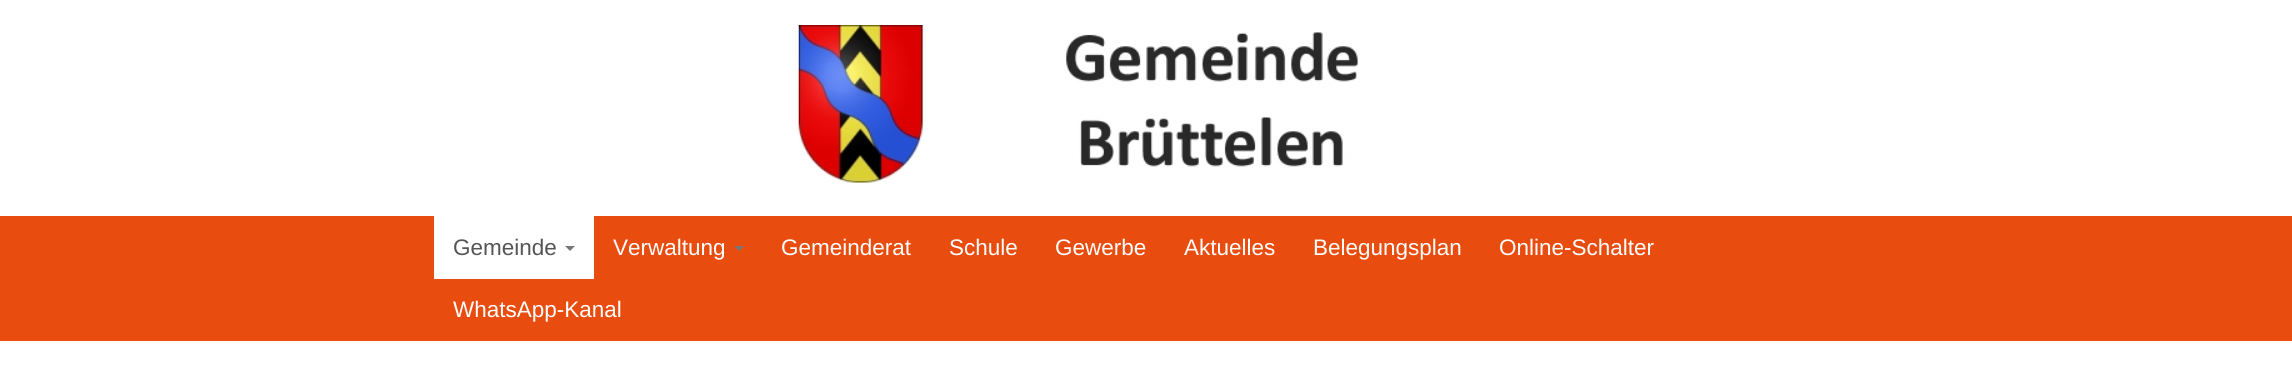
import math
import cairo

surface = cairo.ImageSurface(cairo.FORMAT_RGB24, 2292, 380)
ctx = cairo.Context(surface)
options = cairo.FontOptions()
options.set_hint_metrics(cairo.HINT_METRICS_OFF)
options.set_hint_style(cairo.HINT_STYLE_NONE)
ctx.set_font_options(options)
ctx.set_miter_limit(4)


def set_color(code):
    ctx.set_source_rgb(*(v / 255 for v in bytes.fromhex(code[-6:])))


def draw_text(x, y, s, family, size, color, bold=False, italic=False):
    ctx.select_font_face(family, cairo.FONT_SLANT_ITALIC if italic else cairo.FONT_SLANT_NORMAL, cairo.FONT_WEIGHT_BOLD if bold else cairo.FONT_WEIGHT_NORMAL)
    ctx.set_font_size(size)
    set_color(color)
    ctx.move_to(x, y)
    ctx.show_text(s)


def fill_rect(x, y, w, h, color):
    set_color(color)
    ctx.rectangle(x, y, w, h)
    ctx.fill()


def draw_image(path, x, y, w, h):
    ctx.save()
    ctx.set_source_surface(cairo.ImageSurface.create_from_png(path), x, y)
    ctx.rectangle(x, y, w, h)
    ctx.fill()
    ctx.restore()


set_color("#ffffff")
ctx.paint()
draw_image("assets/img1.png", 797, 25, 561, 158)
fill_rect(0, 216, 2292, 125, "#e84c0e")
fill_rect(434, 216, 160, 63, "#ffffff")
draw_text(453, 255, "Gemeinde", "Liberation Sans", 22.5, "#555555")
set_color("#777777")
ctx.new_path()
ctx.move_to(565, 246)
ctx.line_to(575, 246)
ctx.line_to(570, 251)
ctx.close_path()
ctx.fill()
draw_text(613, 255, "Verwaltung", "Liberation Sans", 22.5, "#ffffff")
set_color("#777777")
ctx.new_path()
ctx.move_to(734, 246)
ctx.line_to(744, 246)
ctx.line_to(739, 251)
ctx.close_path()
ctx.fill()
draw_text(781, 255, "Gemeinderat", "Liberation Sans", 22.5, "#ffffff")
draw_text(949, 255, "Schule", "Liberation Sans", 22.5, "#ffffff")
draw_text(1055, 255, "Gewerbe", "Liberation Sans", 22.5, "#ffffff")
draw_text(1184, 255, "Aktuelles", "Liberation Sans", 22.5, "#ffffff")
draw_text(1313, 255, "Belegungsplan", "Liberation Sans", 22.5, "#ffffff")
draw_text(1499, 255, "Online-Schalter", "Liberation Sans", 22.5, "#ffffff")
draw_text(453, 317, "WhatsApp-Kanal", "Liberation Sans", 22.5, "#ffffff")
surface.write_to_png("output.png")
